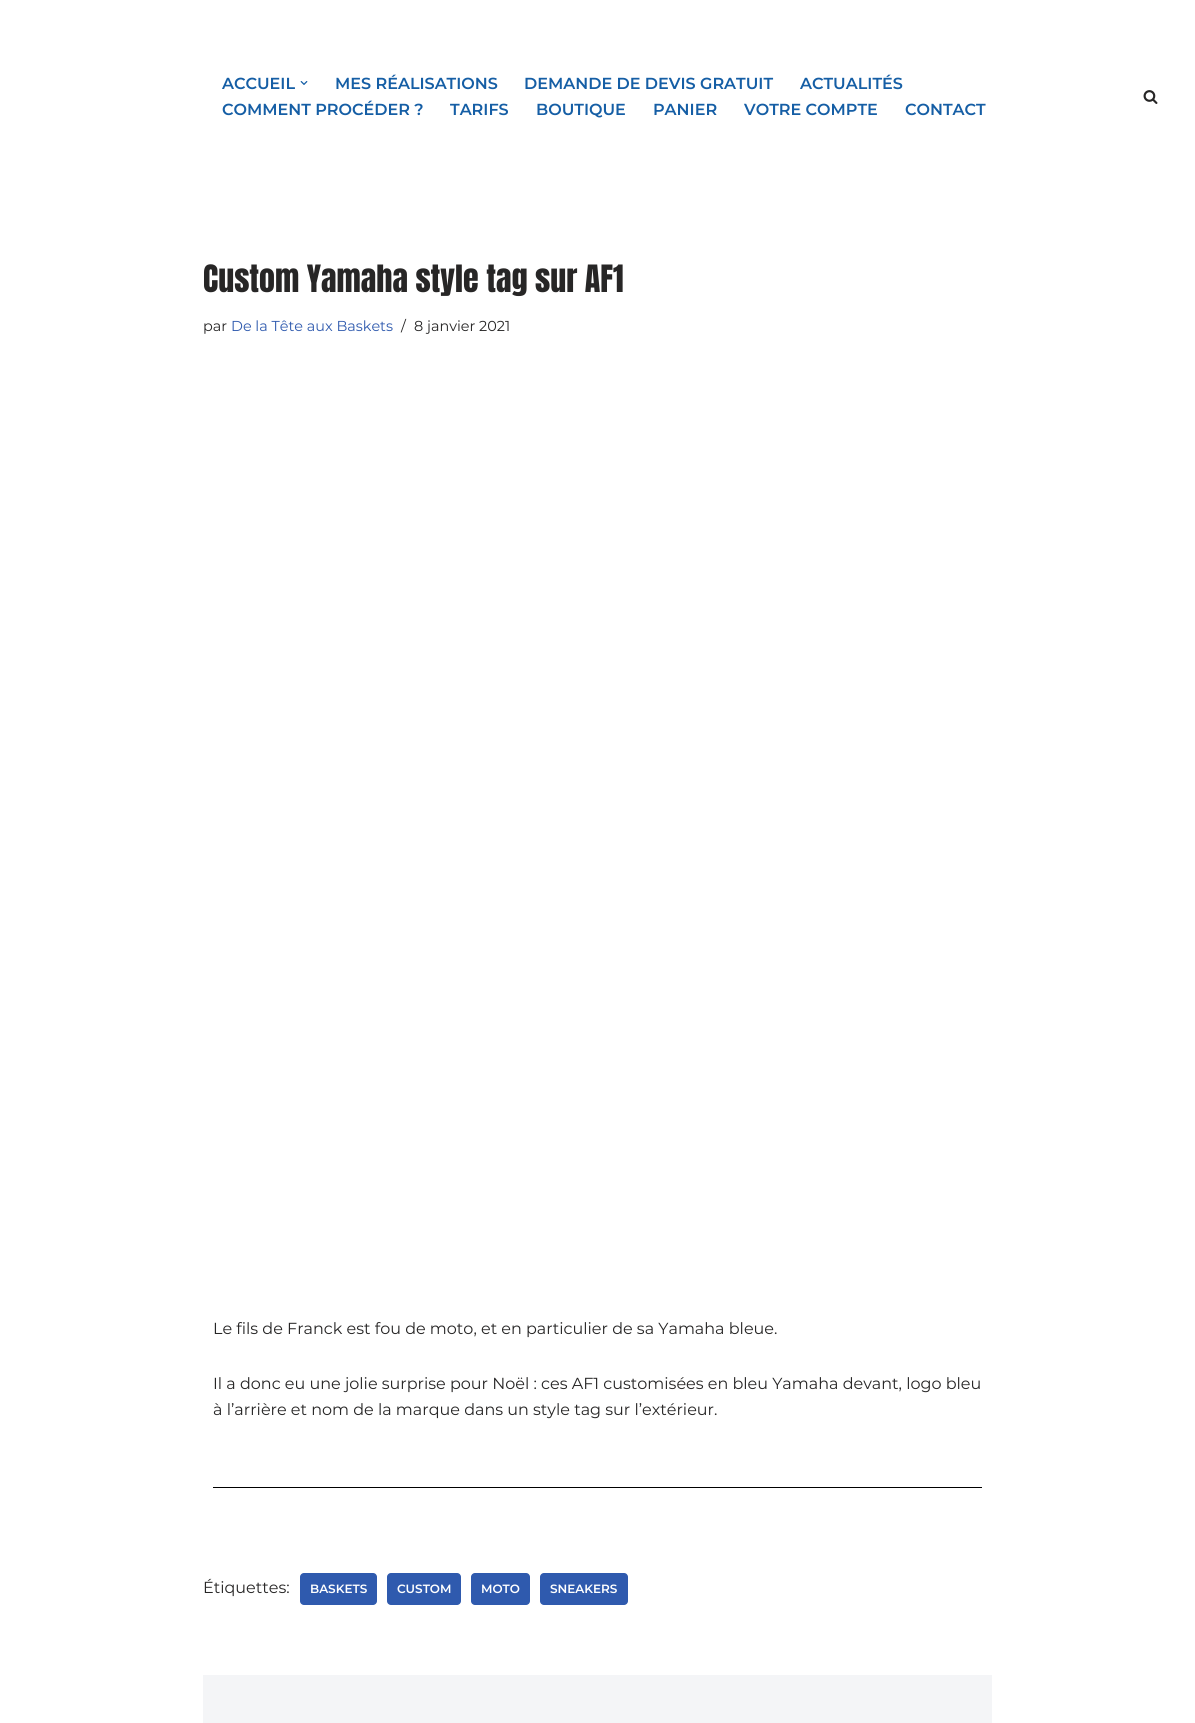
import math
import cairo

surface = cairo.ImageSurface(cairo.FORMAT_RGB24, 1195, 1723)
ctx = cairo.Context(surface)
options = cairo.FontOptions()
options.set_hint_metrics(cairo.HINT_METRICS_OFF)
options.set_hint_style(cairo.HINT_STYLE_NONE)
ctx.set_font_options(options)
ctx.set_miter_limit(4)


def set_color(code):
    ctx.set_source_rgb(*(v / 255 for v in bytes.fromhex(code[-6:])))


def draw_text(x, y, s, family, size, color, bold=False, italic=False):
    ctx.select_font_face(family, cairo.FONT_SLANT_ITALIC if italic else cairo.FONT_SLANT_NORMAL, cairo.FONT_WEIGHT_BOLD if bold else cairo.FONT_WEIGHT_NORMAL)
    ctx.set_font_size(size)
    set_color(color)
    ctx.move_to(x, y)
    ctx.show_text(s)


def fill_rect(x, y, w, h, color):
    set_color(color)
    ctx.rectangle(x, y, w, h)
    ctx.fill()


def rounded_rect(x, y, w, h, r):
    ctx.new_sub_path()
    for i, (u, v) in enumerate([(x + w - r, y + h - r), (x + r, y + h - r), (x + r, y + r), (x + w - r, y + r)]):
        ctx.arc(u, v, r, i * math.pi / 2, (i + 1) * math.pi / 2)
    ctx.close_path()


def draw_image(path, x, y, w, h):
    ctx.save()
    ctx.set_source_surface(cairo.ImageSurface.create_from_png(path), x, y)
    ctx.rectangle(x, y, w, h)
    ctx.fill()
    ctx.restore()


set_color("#ffffff")
ctx.paint()
draw_text(222, 89, "ACCUEIL", "Montserrat SemiBold", 16, "#155ea5")
draw_image("assets/img1.png", 300, 81, 8, 4)
draw_text(335, 89, "MES RÉALISATIONS", "Montserrat SemiBold", 16, "#155ea5")
draw_text(524, 89, "DEMANDE DE DEVIS GRATUIT", "Montserrat SemiBold", 16, "#155ea5")
draw_text(800, 89, "ACTUALITÉS", "Montserrat SemiBold", 16, "#155ea5")
draw_text(222, 115, "COMMENT PROCÉDER ?", "Montserrat SemiBold", 16, "#155ea5")
draw_text(450, 115, "TARIFS", "Montserrat SemiBold", 16, "#155ea5")
draw_text(536, 115, "BOUTIQUE", "Montserrat SemiBold", 16, "#155ea5")
draw_text(653, 115, "PANIER", "Montserrat SemiBold", 16, "#155ea5")
draw_text(744, 115, "VOTRE COMPTE", "Montserrat SemiBold", 16, "#155ea5")
draw_text(905, 115, "CONTACT", "Montserrat SemiBold", 16, "#155ea5")
draw_image("assets/img2.png", 1143, 90, 15, 14)
draw_text(203, 292, "Custom Yamaha style tag sur AF1", "Anton", 32, "#272626")
draw_text(203, 331, "par", "Montserrat", 14.4, "#272626")
draw_text(231, 331, "De la Tête aux Baskets", "Montserrat", 14.4, "#2f5aae")
draw_text(401, 331, "/", "Montserrat", 14.4, "#272626")
draw_text(414, 331, "8 janvier 2021", "Montserrat", 14.4, "#272626")
draw_text(213, 1334, "Le fils de Franck est fou de moto, et en particulier de sa Yamaha bleue.", "Montserrat", 16, "#272626")
draw_text(213, 1389, "Il a donc eu une jolie surprise pour Noël : ces AF1 customisées en bleu Yamaha devant, logo bleu", "Montserrat", 16, "#272626")
draw_text(213, 1415, "à l’arrière et nom de la marque dans un style tag sur l’extérieur.", "Montserrat", 16, "#272626")
fill_rect(213, 1487, 769, 1, "#000000")
draw_text(203, 1593, "Étiquettes:", "Montserrat", 16, "#272626")
set_color("#2f5aae")
rounded_rect(300, 1573, 77, 32, 4)
ctx.fill()
draw_text(310, 1593, "BASKETS", "Montserrat SemiBold", 12, "#ffffff")
set_color("#2f5aae")
rounded_rect(387, 1573, 74, 32, 4)
ctx.fill()
draw_text(397, 1593, "CUSTOM", "Montserrat SemiBold", 12, "#ffffff")
set_color("#2f5aae")
rounded_rect(471, 1573, 59, 32, 4)
ctx.fill()
draw_text(481, 1593, "MOTO", "Montserrat SemiBold", 12, "#ffffff")
set_color("#2f5aae")
rounded_rect(540, 1573, 88, 32, 4)
ctx.fill()
draw_text(550, 1593, "SNEAKERS", "Montserrat SemiBold", 12, "#ffffff")
fill_rect(203, 1675, 789, 48, "#f4f5f7")
surface.write_to_png("output.png")
